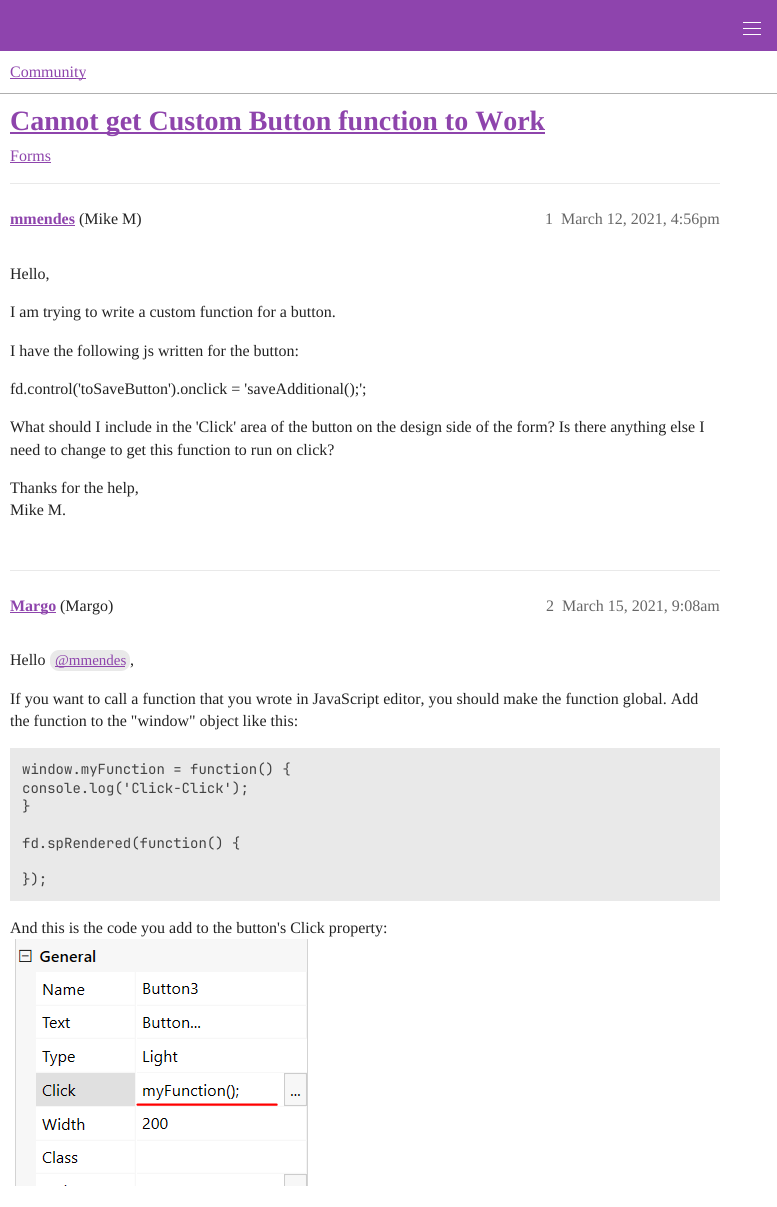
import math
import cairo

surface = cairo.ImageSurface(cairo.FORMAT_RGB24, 777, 1207)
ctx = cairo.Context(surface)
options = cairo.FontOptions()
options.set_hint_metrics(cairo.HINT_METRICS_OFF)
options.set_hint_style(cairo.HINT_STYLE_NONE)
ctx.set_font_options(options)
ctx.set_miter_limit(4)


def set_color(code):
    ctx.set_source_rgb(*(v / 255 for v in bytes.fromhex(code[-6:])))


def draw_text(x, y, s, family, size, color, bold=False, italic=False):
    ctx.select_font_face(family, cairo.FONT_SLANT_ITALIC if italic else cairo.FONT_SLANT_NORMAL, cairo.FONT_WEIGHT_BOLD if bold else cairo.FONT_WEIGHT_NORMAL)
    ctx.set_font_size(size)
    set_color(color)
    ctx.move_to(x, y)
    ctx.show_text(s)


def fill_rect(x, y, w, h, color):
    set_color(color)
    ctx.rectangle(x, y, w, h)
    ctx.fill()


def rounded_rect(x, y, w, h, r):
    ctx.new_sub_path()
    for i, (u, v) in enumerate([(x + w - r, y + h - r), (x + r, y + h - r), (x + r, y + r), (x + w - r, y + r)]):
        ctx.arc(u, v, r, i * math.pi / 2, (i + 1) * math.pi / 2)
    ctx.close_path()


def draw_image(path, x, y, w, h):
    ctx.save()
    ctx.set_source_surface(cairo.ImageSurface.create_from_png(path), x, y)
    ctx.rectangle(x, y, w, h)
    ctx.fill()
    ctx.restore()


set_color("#ffffff")
ctx.paint()
fill_rect(0, 0, 777, 51, "#8e44ad")
fill_rect(743, 34, 18, 1, "#ffffff")
fill_rect(743, 22, 18, 1, "#ffffff")
fill_rect(743, 28, 18, 1, "#ffffff")
fill_rect(0, 93, 777, 1, "#afafaf")
fill_rect(10, 78, 76, 1, "#8e44ac")
draw_text(10, 77, "Community", "Liberation Serif", 16, "#8e44ac")
fill_rect(10, 132, 535, 2, "#8e44ac")
draw_text(10, 130, "Cannot get Custom Button function to Work", "Liberation Serif", 28, "#8e44ac", bold=True)
draw_text(10, 161, "Forms", "Liberation Serif", 16, "#8e44ac")
fill_rect(10, 162, 41, 1, "#8e44ac")
fill_rect(10, 183, 710, 1, "#e9e9e9")
draw_text(10, 224, "mmendes", "Liberation Serif", 16, "#8e44ac", bold=True)
fill_rect(10, 225, 65, 1, "#8e44ac")
draw_text(79, 224, "(Mike M)", "Liberation Serif", 16, "#222222")
draw_text(545, 224, "1", "Liberation Serif", 16, "#666666")
draw_text(561, 224, "March 12, 2021, 4:56pm", "Liberation Serif", 16, "#666666")
draw_text(10, 279, "Hello,", "Liberation Serif", 16, "#222222")
draw_text(10, 317, "I am trying to write a custom function for a button.", "Liberation Serif", 16, "#222222")
draw_text(10, 356, "I have the following js written for the button:", "Liberation Serif", 16, "#222222")
draw_text(10, 394, "fd.control('toSaveButton').onclick = 'saveAdditional();';", "Liberation Serif", 16, "#222222")
draw_text(10, 432, "What should I include in the 'Click' area of the button on the design side of the form? Is there anything else I", "Liberation Serif", 16, "#222222")
draw_text(10, 455, "need to change to get this function to run on click?", "Liberation Serif", 16, "#222222")
draw_text(10, 493, "Thanks for the help,", "Liberation Serif", 16, "#222222")
draw_text(10, 515, "Mike M.", "Liberation Serif", 16, "#222222")
fill_rect(10, 570, 710, 1, "#e9e9e9")
fill_rect(10, 612, 46, 1, "#8e44ac")
draw_text(10, 611, "Margo", "Liberation Serif", 16, "#8e44ac", bold=True)
draw_text(60, 611, "(Margo)", "Liberation Serif", 16, "#222222")
draw_text(546, 611, "2", "Liberation Serif", 16, "#666666")
draw_text(562, 611, "March 15, 2021, 9:08am", "Liberation Serif", 16, "#666666")
draw_text(10, 665, "Hello", "Liberation Serif", 16, "#222222")
set_color("#e9e9e9")
rounded_rect(50, 650, 80, 21, 9)
ctx.fill()
fill_rect(55, 666, 70, 1, "#8e44ac")
draw_text(55, 665, "@mmendes", "Liberation Serif", 15, "#8e44ac")
draw_text(130, 665, ",", "Liberation Serif", 16, "#222222")
draw_text(10, 704, "If you want to call a function that you wrote in JavaScript editor, you should make the function global. Add", "Liberation Serif", 16, "#222222")
draw_text(10, 726, "the function to the \"window\" object like this:", "Liberation Serif", 16, "#222222")
fill_rect(10, 748, 710, 153, "#e9e9e9")
draw_text(22, 774, "window.myFunction = function() {", "JetBrains Mono", 14, "#434343")
draw_text(22, 793, "console.log('Click-Click');", "JetBrains Mono", 14, "#434343")
draw_text(22, 811, "}", "JetBrains Mono", 14, "#434343")
draw_text(22, 848, "fd.spRendered(function() {", "JetBrains Mono", 14, "#434343")
draw_text(22, 884, "});", "JetBrains Mono", 14, "#434343")
draw_text(10, 933, "And this is the code you add to the button's Click property:", "Liberation Serif", 16, "#222222")
draw_image("assets/img1.png", 15, 939, 293, 247)
surface.write_to_png("output.png")
